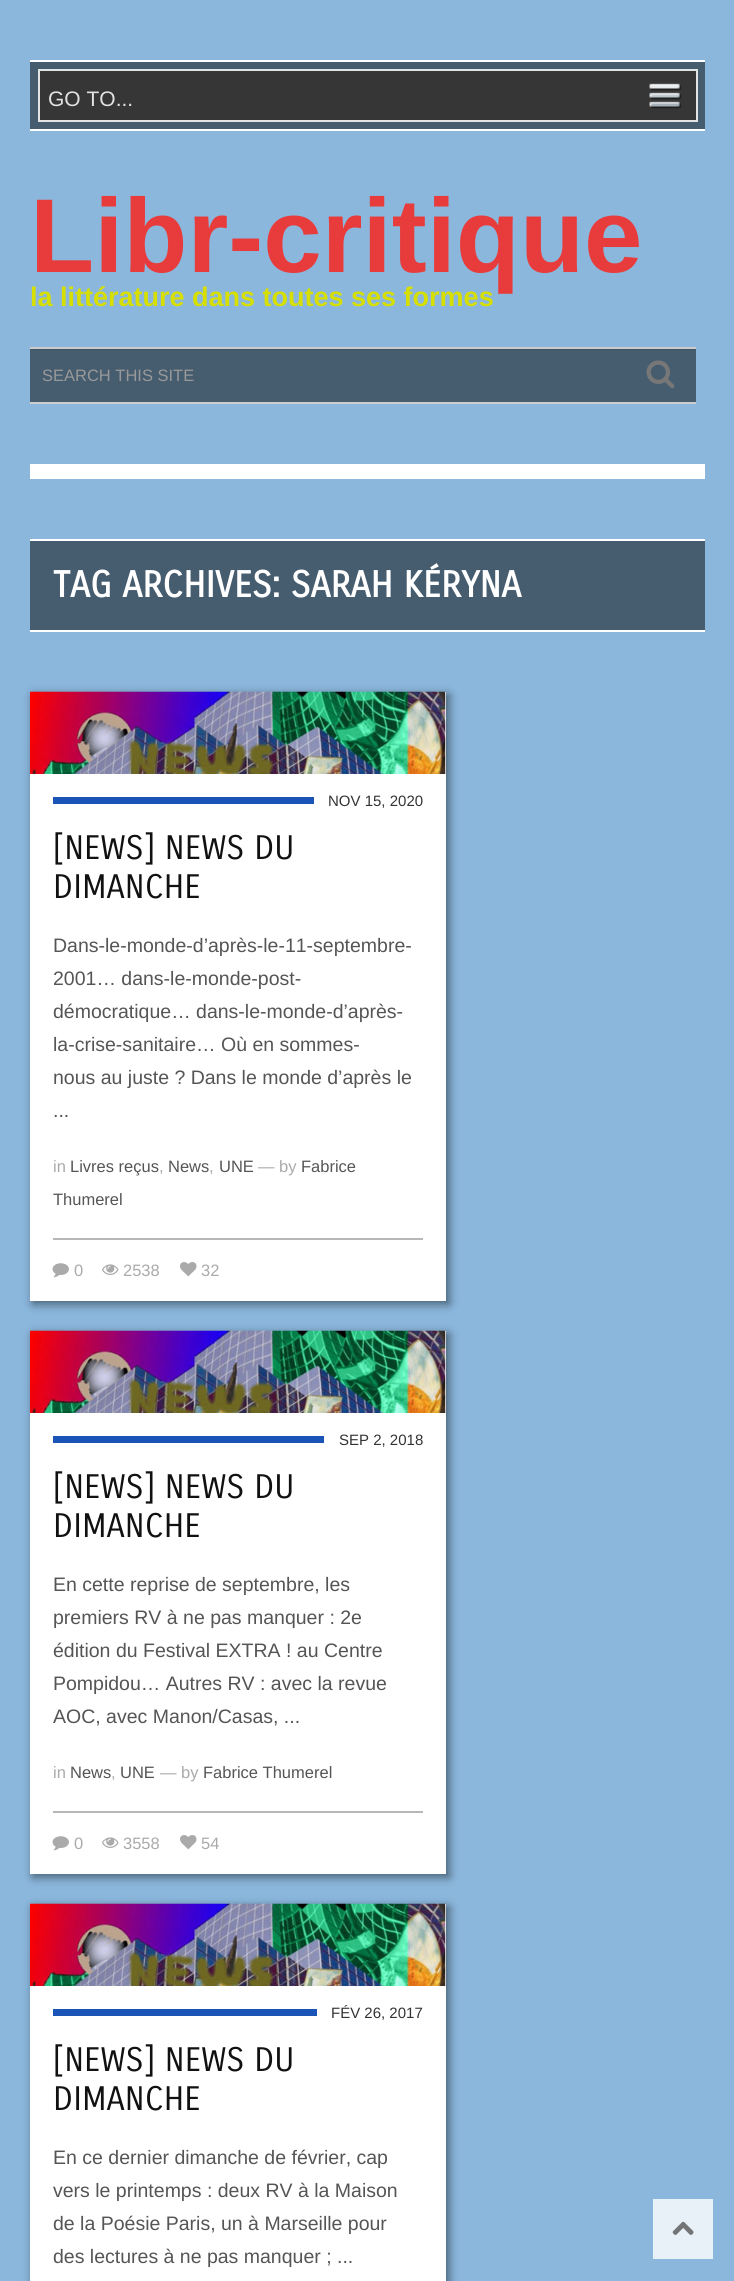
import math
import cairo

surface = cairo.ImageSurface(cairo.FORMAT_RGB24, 734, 2281)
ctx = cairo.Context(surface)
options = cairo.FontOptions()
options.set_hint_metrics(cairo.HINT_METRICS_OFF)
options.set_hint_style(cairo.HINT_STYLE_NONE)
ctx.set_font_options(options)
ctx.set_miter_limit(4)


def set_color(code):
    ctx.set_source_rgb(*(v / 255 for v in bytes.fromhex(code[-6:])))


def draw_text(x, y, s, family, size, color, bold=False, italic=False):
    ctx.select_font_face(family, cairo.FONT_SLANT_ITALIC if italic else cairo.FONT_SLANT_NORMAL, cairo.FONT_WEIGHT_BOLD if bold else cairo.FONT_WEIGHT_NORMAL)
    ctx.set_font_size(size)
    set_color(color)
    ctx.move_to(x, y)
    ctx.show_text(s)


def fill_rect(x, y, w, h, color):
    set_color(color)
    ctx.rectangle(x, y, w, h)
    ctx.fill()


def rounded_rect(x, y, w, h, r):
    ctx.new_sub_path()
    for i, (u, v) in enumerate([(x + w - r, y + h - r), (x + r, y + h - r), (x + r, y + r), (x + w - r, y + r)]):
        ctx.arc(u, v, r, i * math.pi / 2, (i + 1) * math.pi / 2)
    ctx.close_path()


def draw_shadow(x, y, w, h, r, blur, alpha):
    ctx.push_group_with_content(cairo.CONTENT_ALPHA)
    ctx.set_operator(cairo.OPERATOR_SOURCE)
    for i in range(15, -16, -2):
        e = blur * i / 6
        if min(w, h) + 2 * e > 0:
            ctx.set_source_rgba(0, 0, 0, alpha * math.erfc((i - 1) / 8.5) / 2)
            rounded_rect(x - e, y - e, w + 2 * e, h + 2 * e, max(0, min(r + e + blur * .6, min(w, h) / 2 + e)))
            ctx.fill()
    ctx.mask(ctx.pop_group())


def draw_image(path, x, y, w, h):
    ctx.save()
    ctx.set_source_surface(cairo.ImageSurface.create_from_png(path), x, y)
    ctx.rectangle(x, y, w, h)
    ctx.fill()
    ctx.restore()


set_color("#8bb7dd")
ctx.paint()
fill_rect(30, 60, 675, 2, "#ffffff")
fill_rect(30, 129, 675, 2, "#ffffff")
fill_rect(30, 62, 675, 67, "#465c6f")
fill_rect(40, 71, 656, 49, "#363636")
draw_image("assets/img1.png", 649, 83, 33, 26)
ctx.rectangle(39, 70, 658, 51)
set_color("#e3e4e4")
ctx.stroke()
draw_text(48, 106, "GO TO...", "Liberation Sans", 21, "#e2e2e2")
draw_text(30, 272, "Libr-critique", "Liberation Sans", 105, "#e83c3c", bold=True)
draw_text(30, 306, "la littérature dans toutes ses formes", "Liberation Sans", 27, "#d7df01", bold=True)
fill_rect(30, 350, 666, 52, "#465c6f")
fill_rect(30, 349, 666, 1, "#415567")
fill_rect(30, 347, 666, 2, "#cccccc")
fill_rect(30, 402, 666, 2, "#cccccc")
draw_text(42, 381, "SEARCH THIS SITE", "Liberation Sans", 16.5, "#999999")
draw_image("assets/img2.png", 646, 360, 29, 29)
fill_rect(30, 464, 675, 15, "#ffffff")
fill_rect(30, 541, 675, 89, "#465c6f")
fill_rect(30, 539, 675, 2, "#ffffff")
fill_rect(30, 630, 675, 2, "#ffffff")
draw_text(53, 597, "TAG ARCHIVES: SARAH KÉRYNA", "Carrois Gothic", 36, "#ffffff", bold=True)
set_color("#000000")
draw_shadow(33, 695, 416, 609, 0, 5, 0.5)
fill_rect(30, 692, 416, 609, "#ffffff")
draw_image("assets/img3.png", 30, 691, 416, 83)
fill_rect(53, 797, 261, 7, "#1b54b7")
draw_text(328, 806, "NOV 15, 2020", "Liberation Sans", 15, "#333333")
draw_text(53, 859, "[NEWS] NEWS DU", "Carrois Gothic", 33, "#111111")
draw_text(53, 898, "DIMANCHE", "Carrois Gothic", 33, "#111111")
draw_text(53, 952, "Dans-le-monde-d’après-le-11-septembre-", "Liberation Sans", 19.5, "#555555")
draw_text(53, 985, "2001… dans-le-monde-post-", "Liberation Sans", 19.5, "#555555")
draw_text(53, 1018, "démocratique… dans-le-monde-d’après-", "Liberation Sans", 19.5, "#555555")
draw_text(53, 1051, "la-crise-sanitaire… Où en sommes-", "Liberation Sans", 19.5, "#555555")
draw_text(53, 1084, "nous au juste ? Dans le monde d’après le", "Liberation Sans", 19.5, "#555555")
draw_text(53, 1117, "...", "Liberation Sans", 19.5, "#555555")
draw_text(53, 1172, "in", "Liberation Sans", 16.5, "#aaaaaa")
draw_text(70, 1172, "Livres reçus", "Liberation Sans", 16.5, "#555555")
draw_text(159, 1172, ",", "Liberation Sans", 16.5, "#aaaaaa")
draw_text(168, 1172, "News", "Liberation Sans", 16.5, "#555555")
draw_text(209, 1172, ",", "Liberation Sans", 16.5, "#aaaaaa")
draw_text(219, 1172, "UNE", "Liberation Sans", 16.5, "#555555")
draw_text(258, 1172, "— by", "Liberation Sans", 16.5, "#aaaaaa")
draw_text(301, 1172, "Fabrice", "Liberation Sans", 16.5, "#555555")
draw_text(53, 1205, "Thumerel", "Liberation Sans", 16.5, "#555555")
fill_rect(53, 1238, 370, 2, "#b7b7b7")
draw_image("assets/img4.png", 52, 1263, 17, 15)
draw_text(74, 1276, "0", "Liberation Sans", 16.5, "#aaaaaa")
draw_image("assets/img5.png", 102, 1264, 17, 11)
draw_text(123, 1276, "2538", "Liberation Sans", 16.5, "#aaaaaa")
draw_image("assets/img6.png", 180, 1262, 17, 15)
draw_text(201, 1276, "32", "Liberation Sans", 16.5, "#aaaaaa")
set_color("#000000")
draw_shadow(33, 1334, 416, 543, 0, 5, 0.5)
fill_rect(30, 1331, 416, 543, "#ffffff")
draw_image("assets/img3.png", 30, 1330, 416, 83)
fill_rect(53, 1436, 271, 7, "#1b54b7")
draw_text(339, 1445, "SEP 2, 2018", "Liberation Sans", 15, "#333333")
draw_text(53, 1498, "[NEWS] NEWS DU", "Carrois Gothic", 33, "#111111")
draw_text(53, 1537, "DIMANCHE", "Carrois Gothic", 33, "#111111")
draw_text(53, 1591, "En cette reprise de septembre, les", "Liberation Sans", 19.5, "#555555")
draw_text(53, 1624, "premiers RV à ne pas manquer : 2e", "Liberation Sans", 19.5, "#555555")
draw_text(53, 1657, "édition du Festival EXTRA ! au Centre", "Liberation Sans", 19.5, "#555555")
draw_text(53, 1690, "Pompidou… Autres RV : avec la revue", "Liberation Sans", 19.5, "#555555")
draw_text(53, 1723, "AOC, avec Manon/Casas, ...", "Liberation Sans", 19.5, "#555555")
draw_text(53, 1778, "in", "Liberation Sans", 16.5, "#aaaaaa")
draw_text(70, 1778, "News", "Liberation Sans", 16.5, "#555555")
draw_text(111, 1778, ",", "Liberation Sans", 16.5, "#aaaaaa")
draw_text(120, 1778, "UNE", "Liberation Sans", 16.5, "#555555")
draw_text(160, 1778, "— by", "Liberation Sans", 16.5, "#aaaaaa")
draw_text(203, 1778, "Fabrice Thumerel", "Liberation Sans", 16.5, "#555555")
fill_rect(53, 1811, 370, 2, "#b7b7b7")
draw_image("assets/img4.png", 52, 1836, 17, 15)
draw_text(74, 1849, "0", "Liberation Sans", 16.5, "#aaaaaa")
draw_image("assets/img5.png", 102, 1837, 17, 11)
draw_text(123, 1849, "3558", "Liberation Sans", 16.5, "#aaaaaa")
draw_image("assets/img6.png", 180, 1835, 17, 15)
draw_text(201, 1849, "54", "Liberation Sans", 16.5, "#aaaaaa")
set_color("#000000")
draw_shadow(33, 1907, 416, 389, 0, 5, 0.5)
fill_rect(30, 1904, 416, 377, "#ffffff")
draw_image("assets/img3.png", 30, 1903, 416, 83)
fill_rect(53, 2009, 264, 7, "#1b54b7")
draw_text(331, 2018, "FÉV 26, 2017", "Liberation Sans", 15, "#333333")
draw_text(53, 2071, "[NEWS] NEWS DU", "Carrois Gothic", 33, "#111111")
draw_text(53, 2110, "DIMANCHE", "Carrois Gothic", 33, "#111111")
draw_text(53, 2164, "En ce dernier dimanche de février, cap", "Liberation Sans", 19.5, "#555555")
draw_text(53, 2197, "vers le printemps : deux RV à la Maison", "Liberation Sans", 19.5, "#555555")
draw_text(53, 2230, "de la Poésie Paris, un à Marseille pour", "Liberation Sans", 19.5, "#555555")
draw_text(53, 2263, "des lectures à ne pas manquer ; ...", "Liberation Sans", 19.5, "#555555")
fill_rect(653, 2199, 60, 60, "#e8f1f8")
draw_image("assets/img7.png", 672, 2221, 22, 14)
surface.write_to_png("output.png")
